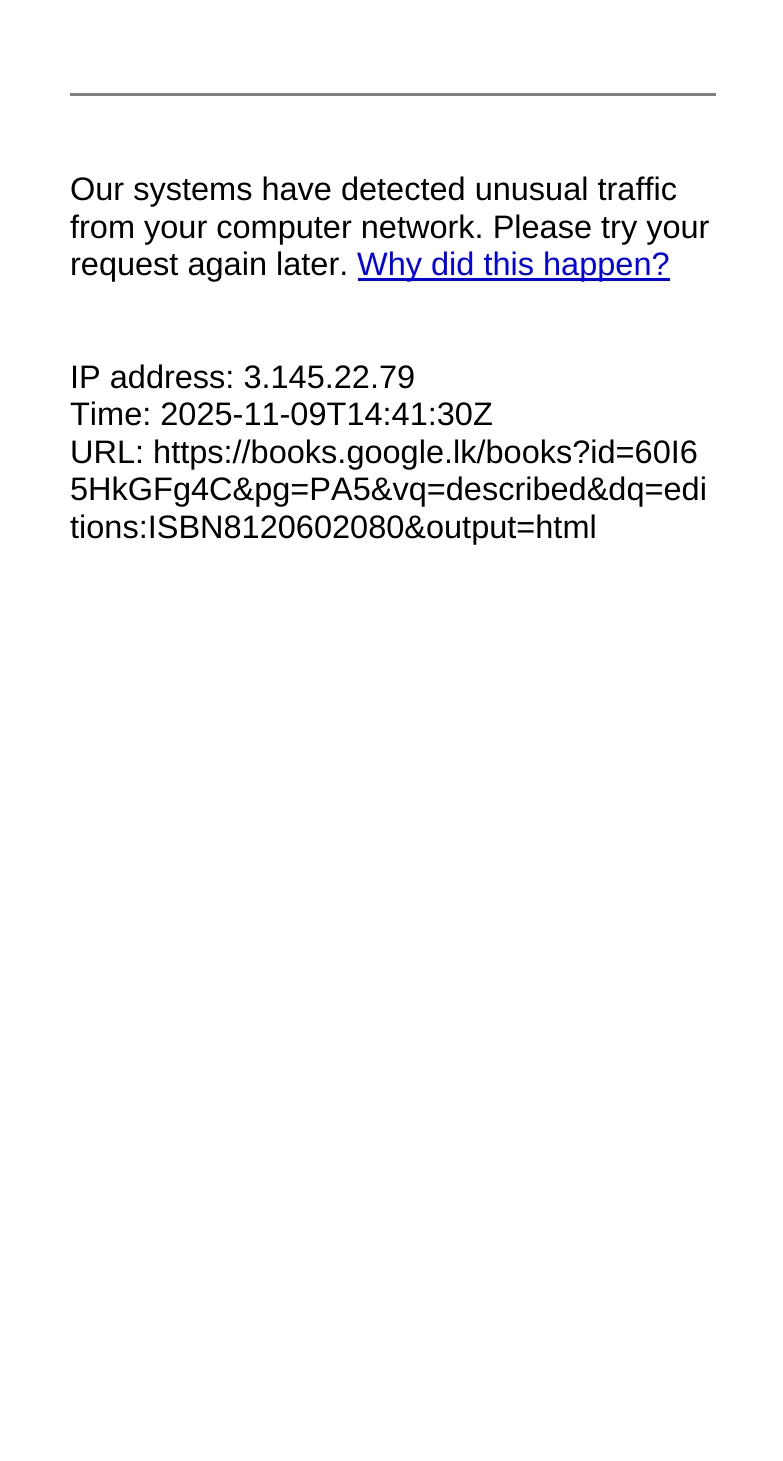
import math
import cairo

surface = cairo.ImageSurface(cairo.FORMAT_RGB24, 783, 1461)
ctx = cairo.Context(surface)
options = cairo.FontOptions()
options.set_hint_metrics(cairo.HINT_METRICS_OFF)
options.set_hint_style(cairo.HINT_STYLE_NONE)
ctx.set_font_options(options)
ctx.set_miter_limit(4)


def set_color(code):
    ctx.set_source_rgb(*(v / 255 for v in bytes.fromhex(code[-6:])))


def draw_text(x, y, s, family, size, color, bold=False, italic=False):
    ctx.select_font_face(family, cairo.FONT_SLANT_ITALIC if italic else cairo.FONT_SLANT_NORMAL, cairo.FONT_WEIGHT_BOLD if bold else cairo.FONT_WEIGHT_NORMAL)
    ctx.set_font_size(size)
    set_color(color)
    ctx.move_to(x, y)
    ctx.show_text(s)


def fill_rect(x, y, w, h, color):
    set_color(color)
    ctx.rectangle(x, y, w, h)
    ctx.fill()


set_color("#ffffff")
ctx.paint()
fill_rect(70, 93, 646, 3, "#808080")
draw_text(70, 200, "Our systems have detected unusual traffic", "Liberation Sans", 32.5, "#000000")
draw_text(70, 238, "from your computer network. Please try your", "Liberation Sans", 32.5, "#000000")
draw_text(70, 275, "request again later.", "Liberation Sans", 32.5, "#000000")
fill_rect(358, 278, 312, 3, "#0000ee")
draw_text(357, 275, "Why did this happen?", "Liberation Sans", 32.5, "#0000ee")
draw_text(70, 388, "IP address: 3.145.22.79", "Liberation Sans", 32.5, "#000000")
draw_text(70, 425, "Time: 2025-11-09T14:41:30Z", "Liberation Sans", 32.5, "#000000")
draw_text(70, 463, "URL: https://books.google.lk/books?id=60I6", "Liberation Sans", 32.5, "#000000")
draw_text(70, 500, "5HkGFg4C&pg=PA5&vq=described&dq=edi", "Liberation Sans", 32.5, "#000000")
draw_text(70, 538, "tions:ISBN8120602080&output=html", "Liberation Sans", 32.5, "#000000")
surface.write_to_png("output.png")
